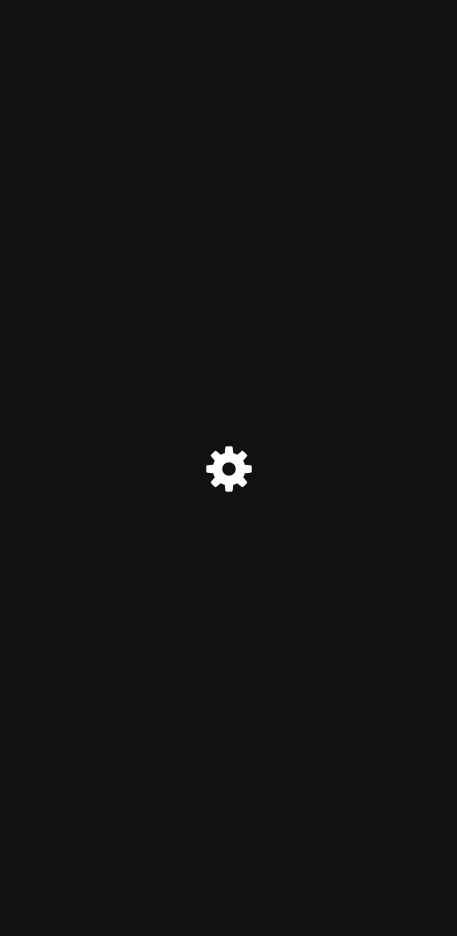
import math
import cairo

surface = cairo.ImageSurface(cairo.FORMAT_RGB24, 457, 936)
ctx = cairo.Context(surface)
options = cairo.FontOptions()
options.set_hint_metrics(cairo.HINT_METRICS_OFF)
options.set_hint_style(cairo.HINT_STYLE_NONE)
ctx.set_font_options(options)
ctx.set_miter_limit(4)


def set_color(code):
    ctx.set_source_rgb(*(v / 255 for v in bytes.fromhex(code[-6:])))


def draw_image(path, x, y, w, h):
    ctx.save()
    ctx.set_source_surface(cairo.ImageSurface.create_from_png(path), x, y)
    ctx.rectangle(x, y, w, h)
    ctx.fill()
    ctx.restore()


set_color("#111111")
ctx.paint()
draw_image("assets/img1.png", 206, 446, 46, 46)
surface.write_to_png("output.png")
